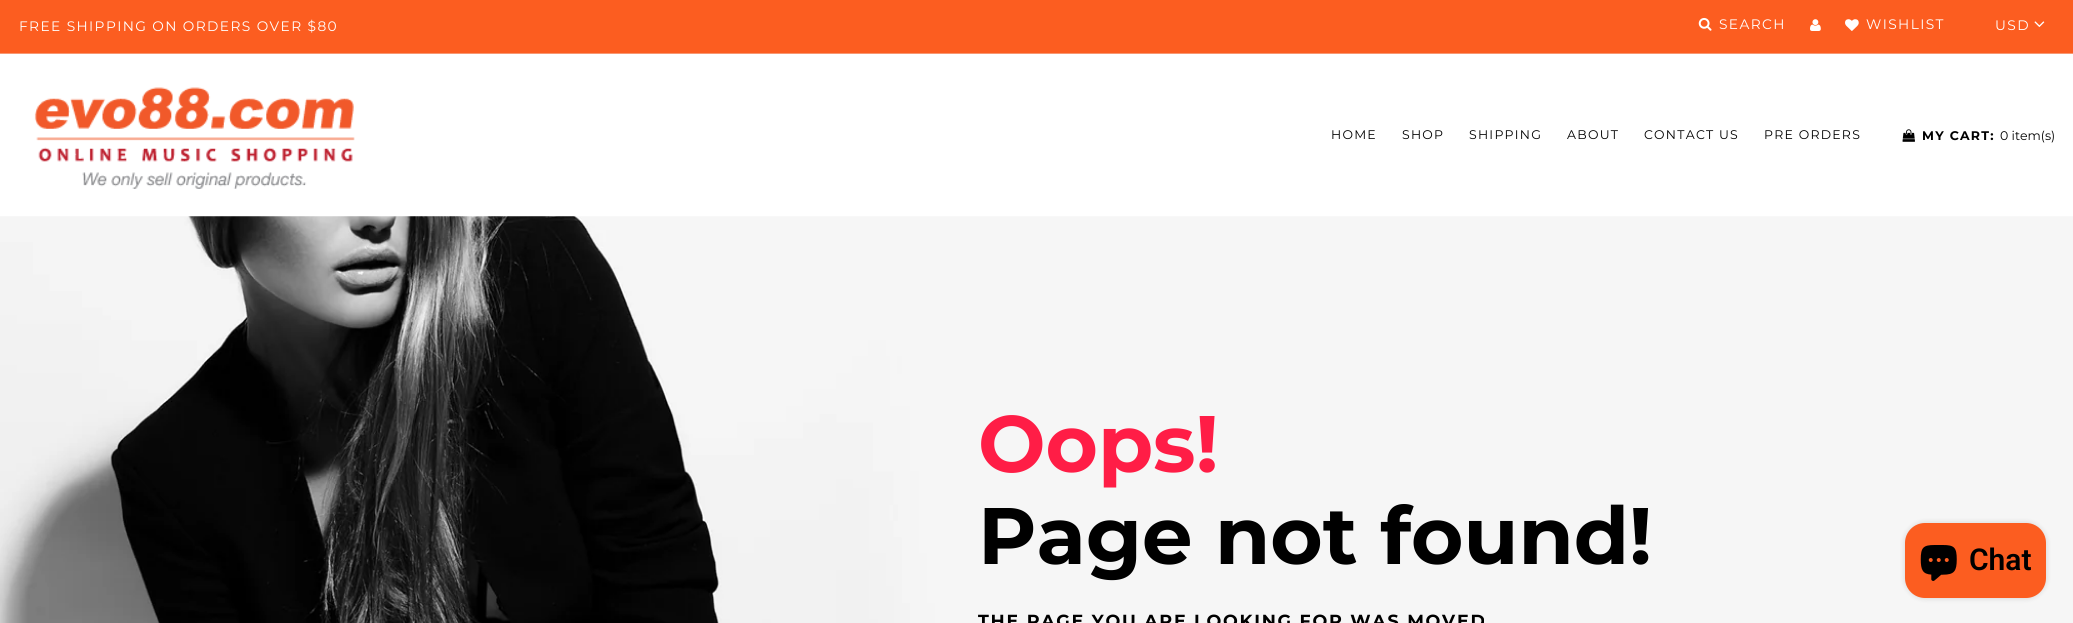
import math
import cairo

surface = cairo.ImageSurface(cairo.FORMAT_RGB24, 2073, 623)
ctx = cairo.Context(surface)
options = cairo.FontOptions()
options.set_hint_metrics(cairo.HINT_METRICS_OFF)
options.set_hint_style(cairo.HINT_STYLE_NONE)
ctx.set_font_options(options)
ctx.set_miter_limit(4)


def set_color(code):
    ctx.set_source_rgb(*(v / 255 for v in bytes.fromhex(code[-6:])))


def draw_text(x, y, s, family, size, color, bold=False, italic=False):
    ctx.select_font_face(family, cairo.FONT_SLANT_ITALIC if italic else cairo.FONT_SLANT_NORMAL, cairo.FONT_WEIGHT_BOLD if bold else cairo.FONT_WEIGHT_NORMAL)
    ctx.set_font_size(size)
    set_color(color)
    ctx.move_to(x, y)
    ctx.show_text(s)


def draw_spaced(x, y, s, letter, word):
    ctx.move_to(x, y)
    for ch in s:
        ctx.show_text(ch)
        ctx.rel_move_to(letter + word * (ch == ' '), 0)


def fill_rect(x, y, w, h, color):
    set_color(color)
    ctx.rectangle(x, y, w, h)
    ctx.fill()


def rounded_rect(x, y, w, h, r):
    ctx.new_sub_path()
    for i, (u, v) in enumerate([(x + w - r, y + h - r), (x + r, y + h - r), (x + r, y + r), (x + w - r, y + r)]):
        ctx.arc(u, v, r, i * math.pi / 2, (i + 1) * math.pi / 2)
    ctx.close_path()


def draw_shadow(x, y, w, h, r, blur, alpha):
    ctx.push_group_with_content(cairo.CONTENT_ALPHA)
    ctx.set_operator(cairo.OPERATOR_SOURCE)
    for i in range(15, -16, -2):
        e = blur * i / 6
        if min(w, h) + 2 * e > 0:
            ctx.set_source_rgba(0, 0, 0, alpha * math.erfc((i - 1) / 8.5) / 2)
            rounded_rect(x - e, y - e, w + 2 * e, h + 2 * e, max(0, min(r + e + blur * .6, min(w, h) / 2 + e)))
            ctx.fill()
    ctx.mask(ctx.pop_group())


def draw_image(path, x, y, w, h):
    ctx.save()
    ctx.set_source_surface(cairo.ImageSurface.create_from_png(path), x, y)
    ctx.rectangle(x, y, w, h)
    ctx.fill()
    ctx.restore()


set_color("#ffffff")
ctx.paint()
fill_rect(0, 0, 2073, 53, "#fc5d20")
fill_rect(0, 53, 2073, 1, "#f79873")
ctx.select_font_face("Montserrat")
ctx.set_font_size(13.75)
set_color("#ffffff")
draw_spaced(19, 31, "FREE SHIPPING ON ORDERS OVER $80", 1.4, 0)
draw_image("assets/img1.png", 1698, 17, 14, 14)
draw_spaced(1719, 29, "SEARCH", 1.4, 0)
draw_image("assets/img2.png", 1810, 19, 11, 12)
draw_image("assets/img3.png", 1845, 19, 14, 12)
draw_spaced(1866, 29, "WISHLIST", 1.4, 0)
draw_spaced(1995, 30, "USD", 1.4, 0)
draw_image("assets/img4.png", 2034, 21, 11, 6)
draw_image("assets/img5.png", 34, 87, 321, 102)
ctx.set_font_size(12.5)
set_color("#000000")
draw_spaced(1331, 139, "HOME", 1.25, 0)
draw_spaced(1402, 139, "SHOP", 1.25, 0)
draw_spaced(1469, 139, "SHIPPING", 1.25, 0)
draw_spaced(1567, 139, "ABOUT", 1.25, 0)
draw_spaced(1644, 139, "CONTACT US", 1.25, 0)
draw_spaced(1764, 139, "PRE ORDERS", 1.25, 0)
draw_image("assets/img6.png", 1902, 129, 13, 13)
ctx.select_font_face("Montserrat", cairo.FONT_SLANT_NORMAL, cairo.FONT_WEIGHT_BOLD)
draw_spaced(1922, 140, "MY CART:", 1.25, 0)
draw_text(2000, 140, "0 item(s)", "Montserrat", 12.5, "#000000")
draw_image("assets/img7.png", 0, 216, 2073, 407)
draw_text(978, 472, "Oops!", "Montserrat", 80, "#ff1d46", bold=True)
draw_text(978, 564, "Page not found!", "Montserrat", 80, "#000000", bold=True)
ctx.set_font_size(17.5)
draw_spaced(978, 627, "THE PAGE YOU ARE LOOKING FOR WAS MOVED", 1.75, 0)
set_color("#000000")
draw_shadow(1905, 523, 141, 75, 20, 3, 0.15)
set_color("#fc5d20")
rounded_rect(1905, 523, 141, 75, 20)
ctx.fill()
draw_image("assets/img8.png", 1920, 545, 37, 36)
draw_text(1969, 570, "Chat", "Roboto SemiBold", 30, "#000000")
surface.write_to_png("output.png")
